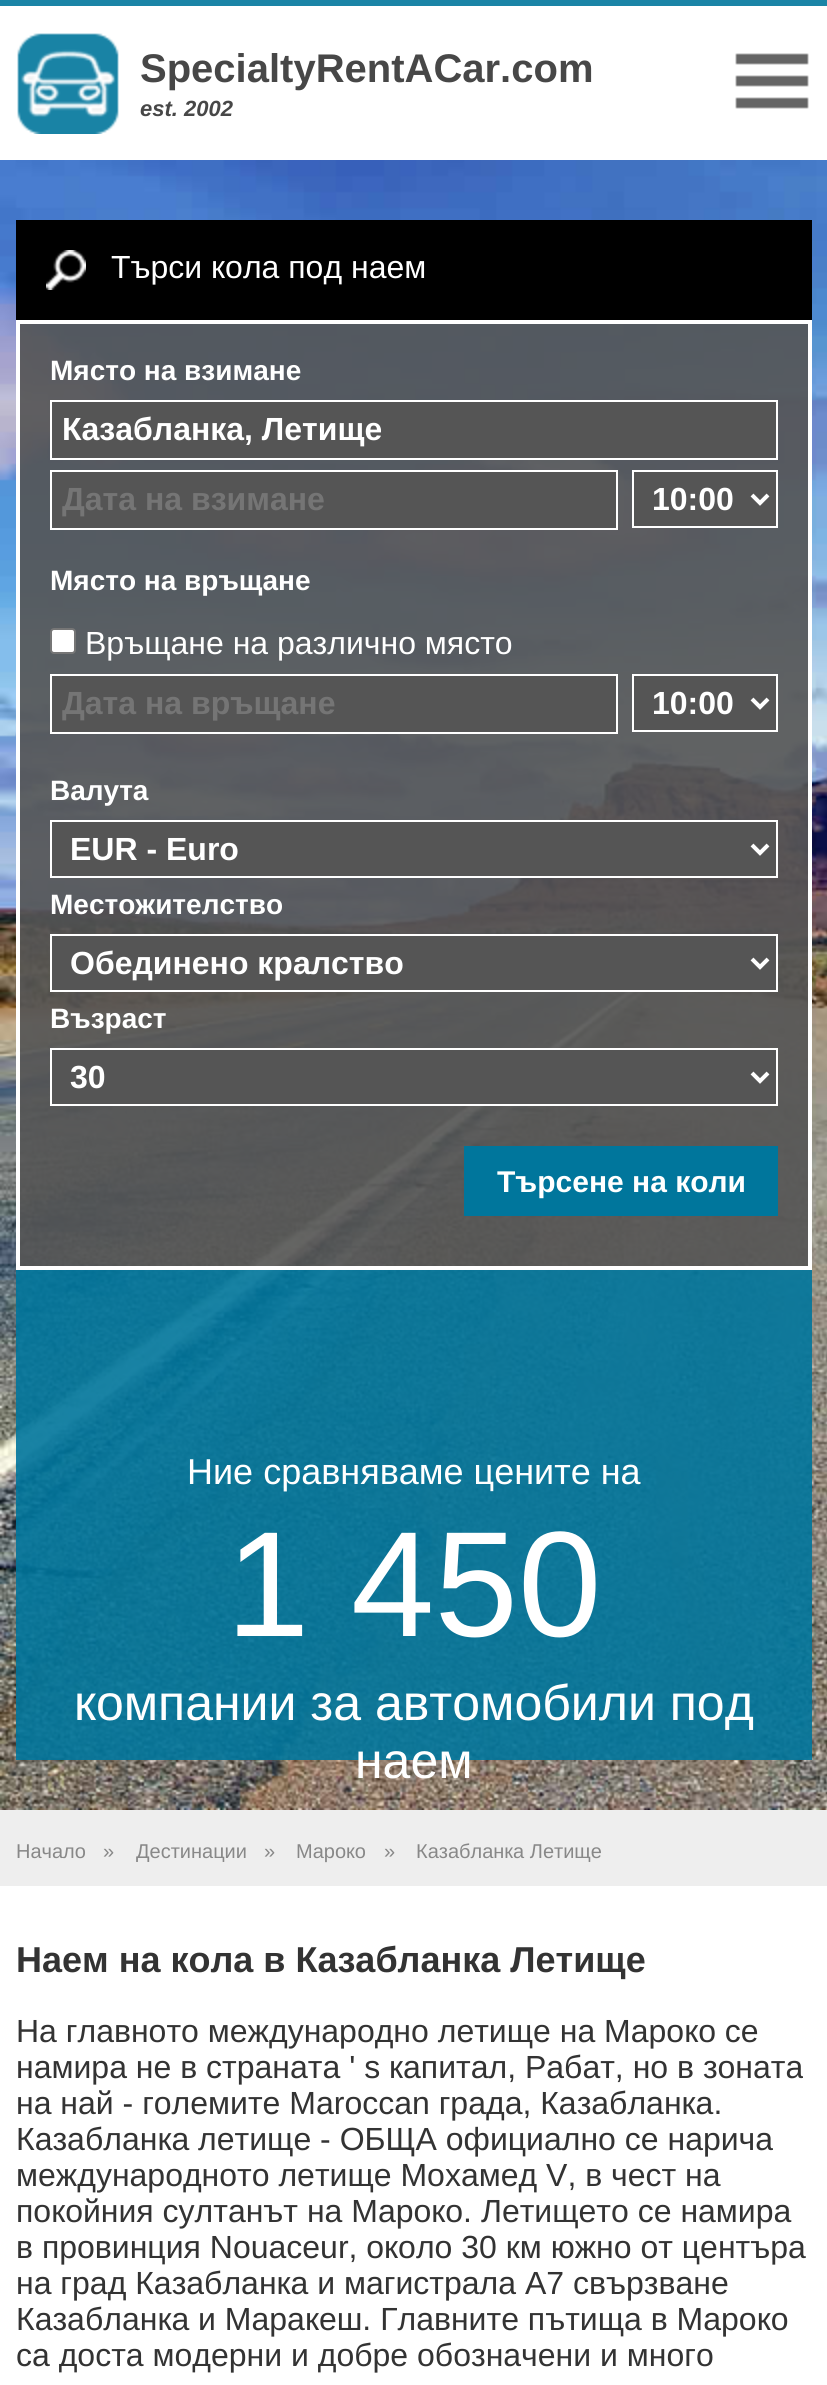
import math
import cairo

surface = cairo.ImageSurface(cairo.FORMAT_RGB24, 827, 2385)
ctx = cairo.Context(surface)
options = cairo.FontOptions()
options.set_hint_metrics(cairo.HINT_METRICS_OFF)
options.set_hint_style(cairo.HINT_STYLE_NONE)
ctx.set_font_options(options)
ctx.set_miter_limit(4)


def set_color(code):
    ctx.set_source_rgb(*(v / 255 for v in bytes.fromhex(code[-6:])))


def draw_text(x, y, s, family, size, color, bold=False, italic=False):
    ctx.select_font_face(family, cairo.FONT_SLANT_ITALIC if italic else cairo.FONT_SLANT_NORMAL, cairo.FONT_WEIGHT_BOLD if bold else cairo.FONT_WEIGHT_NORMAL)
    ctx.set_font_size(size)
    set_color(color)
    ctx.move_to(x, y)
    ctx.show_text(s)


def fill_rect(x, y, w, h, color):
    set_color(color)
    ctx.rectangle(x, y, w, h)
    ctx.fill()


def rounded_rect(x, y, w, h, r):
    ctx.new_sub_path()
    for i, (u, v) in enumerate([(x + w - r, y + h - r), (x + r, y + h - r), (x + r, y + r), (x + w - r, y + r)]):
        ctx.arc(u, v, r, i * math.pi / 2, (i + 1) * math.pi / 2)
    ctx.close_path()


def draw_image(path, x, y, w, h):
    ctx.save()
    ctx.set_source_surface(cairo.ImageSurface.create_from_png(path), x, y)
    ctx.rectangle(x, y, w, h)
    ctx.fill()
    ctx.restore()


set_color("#ffffff")
ctx.paint()
fill_rect(0, 0, 827, 6, "#1a84a6")
draw_image("assets/img1.png", 17, 33, 102, 101)
draw_text(140, 82, "SpecialtyRentACar.com", "Liberation Sans", 40, "#474747", bold=True)
draw_text(140, 116, "est. 2002", "Liberation Sans", 22, "#474747", bold=True, italic=True)
draw_image("assets/img2.png", 735, 53, 74, 56)
draw_image("assets/img3.png", 0, 160, 827, 1650)
fill_rect(16, 220, 796, 100, "#000000")
draw_image("assets/img4.png", 46, 250, 40, 40)
draw_text(111, 278, "Търси кола под наем", "Liberation Sans", 32, "#ffffff")
ctx.set_source_rgba(0.333, 0.333, 0.333, 0.9)
ctx.rectangle(18, 322, 792, 946)
ctx.fill_preserve()
set_color("#ffffff")
ctx.set_line_width(4)
ctx.stroke()
draw_text(50, 380, "Място на взимане", "Liberation Sans", 28, "#ffffff", bold=True)
set_color("#555555")
ctx.rectangle(51, 401, 726, 58)
ctx.fill_preserve()
set_color("#ffffff")
ctx.set_line_width(2)
ctx.stroke()
draw_text(62, 440, "Казабланка, Летище", "Liberation Sans", 32, "#ffffff", bold=True)
set_color("#555555")
ctx.rectangle(51, 471, 566, 58)
ctx.fill_preserve()
set_color("#ffffff")
ctx.stroke()
draw_text(62, 510, "Дата на взимане", "Liberation Sans", 32, "#757575", bold=True)
set_color("#555555")
ctx.rectangle(633, 471, 144, 56)
ctx.fill_preserve()
set_color("#ffffff")
ctx.stroke()
ctx.new_path()
ctx.move_to(752, 495)
ctx.line_to(760, 503)
ctx.line_to(768, 495)
ctx.set_line_width(4)
ctx.stroke()
draw_text(652, 510, "10:00", "Liberation Sans", 32, "#ffffff", bold=True)
draw_text(50, 590, "Място на връщане", "Liberation Sans", 28, "#ffffff", bold=True)
rounded_rect(51, 629, 24, 24, 3)
ctx.fill_preserve()
set_color("#767676")
ctx.set_line_width(2)
ctx.stroke()
draw_text(85, 654, "Връщане на различно място", "Liberation Sans", 32, "#ffffff")
set_color("#555555")
ctx.rectangle(51, 675, 566, 58)
ctx.fill_preserve()
set_color("#ffffff")
ctx.stroke()
draw_text(62, 714, "Дата на връщане", "Liberation Sans", 32, "#757575", bold=True)
set_color("#555555")
ctx.rectangle(633, 675, 144, 56)
ctx.fill_preserve()
set_color("#ffffff")
ctx.stroke()
ctx.new_path()
ctx.move_to(752, 699)
ctx.line_to(760, 707)
ctx.line_to(768, 699)
ctx.set_line_width(4)
ctx.stroke()
draw_text(652, 714, "10:00", "Liberation Sans", 32, "#ffffff", bold=True)
draw_text(50, 800, "Валута", "Liberation Sans", 28, "#ffffff", bold=True)
set_color("#555555")
ctx.rectangle(51, 821, 726, 56)
ctx.fill_preserve()
set_color("#ffffff")
ctx.set_line_width(2)
ctx.stroke()
ctx.new_path()
ctx.move_to(752, 845)
ctx.line_to(760, 853)
ctx.line_to(768, 845)
ctx.set_line_width(4)
ctx.stroke()
draw_text(70, 860, "EUR - Euro", "Liberation Sans", 32, "#ffffff", bold=True)
draw_text(50, 914, "Местожителство", "Liberation Sans", 28, "#ffffff", bold=True)
set_color("#555555")
ctx.rectangle(51, 935, 726, 56)
ctx.fill_preserve()
set_color("#ffffff")
ctx.set_line_width(2)
ctx.stroke()
ctx.new_path()
ctx.move_to(752, 959)
ctx.line_to(760, 967)
ctx.line_to(768, 959)
ctx.set_line_width(4)
ctx.stroke()
draw_text(70, 974, "Обединено кралство", "Liberation Sans", 32, "#ffffff", bold=True)
draw_text(50, 1028, "Възраст", "Liberation Sans", 28, "#ffffff", bold=True)
set_color("#555555")
ctx.rectangle(51, 1049, 726, 56)
ctx.fill_preserve()
set_color("#ffffff")
ctx.set_line_width(2)
ctx.stroke()
ctx.new_path()
ctx.move_to(752, 1073)
ctx.line_to(760, 1081)
ctx.line_to(768, 1073)
ctx.set_line_width(4)
ctx.stroke()
draw_text(70, 1088, "30", "Liberation Sans", 32, "#ffffff", bold=True)
fill_rect(464, 1146, 314, 70, "#00769c")
draw_text(497, 1192, "Търсене на коли", "Liberation Sans", 30, "#ffffff", bold=True)
ctx.set_source_rgba(0, 0.463, 0.612, 0.9)
ctx.rectangle(16, 1270, 796, 490)
ctx.fill()
draw_text(187, 1484, "Ние сравняваме цените на", "Liberation Sans", 36, "#ffffff")
draw_text(226, 1636, "1 450", "Liberation Sans", 150, "#ffffff")
draw_text(74, 1720, "компании за автомобили под", "Liberation Sans", 50, "#ffffff")
draw_text(355, 1778, "наем", "Liberation Sans", 50, "#ffffff")
fill_rect(0, 1810, 827, 76, "#eeeeee")
draw_text(16, 1858, "Начало", "Liberation Sans", 20, "#888888")
draw_text(103, 1858, "»", "Liberation Sans", 20, "#888888")
draw_text(136, 1858, "Дестинации", "Liberation Sans", 20, "#888888")
draw_text(264, 1858, "»", "Liberation Sans", 20, "#888888")
draw_text(296, 1858, "Мароко", "Liberation Sans", 20, "#888888")
draw_text(384, 1858, "»", "Liberation Sans", 20, "#888888")
draw_text(416, 1858, "Казабланка Летище", "Liberation Sans", 20, "#888888")
draw_text(16, 1972, "Наем на кола в Казабланка Летище", "Liberation Sans", 36, "#333333", bold=True)
draw_text(16, 2042, "На главното международно летище на Мароко се", "Liberation Sans", 32, "#333333")
draw_text(16, 2078, "намира не в страната ' s капитал, Рабат, но в зоната", "Liberation Sans", 32, "#333333")
draw_text(16, 2114, "на най - големите Maroccan града, Казабланка.", "Liberation Sans", 32, "#333333")
draw_text(16, 2150, "Казабланка летище - ОБЩА официално се нарича", "Liberation Sans", 32, "#333333")
draw_text(16, 2186, "международното летище Мохамед V, в чест на", "Liberation Sans", 32, "#333333")
draw_text(16, 2222, "покойния султанът на Мароко. Летището се намира", "Liberation Sans", 32, "#333333")
draw_text(16, 2258, "в провинция Nouaceur, около 30 км южно от центъра", "Liberation Sans", 32, "#333333")
draw_text(16, 2294, "на град Казабланка и магистрала А7 свързване", "Liberation Sans", 32, "#333333")
draw_text(16, 2330, "Казабланка и Маракеш. Главните пътища в Мароко", "Liberation Sans", 32, "#333333")
draw_text(16, 2366, "са доста модерни и добре обозначени и много", "Liberation Sans", 32, "#333333")
surface.write_to_png("output.png")
